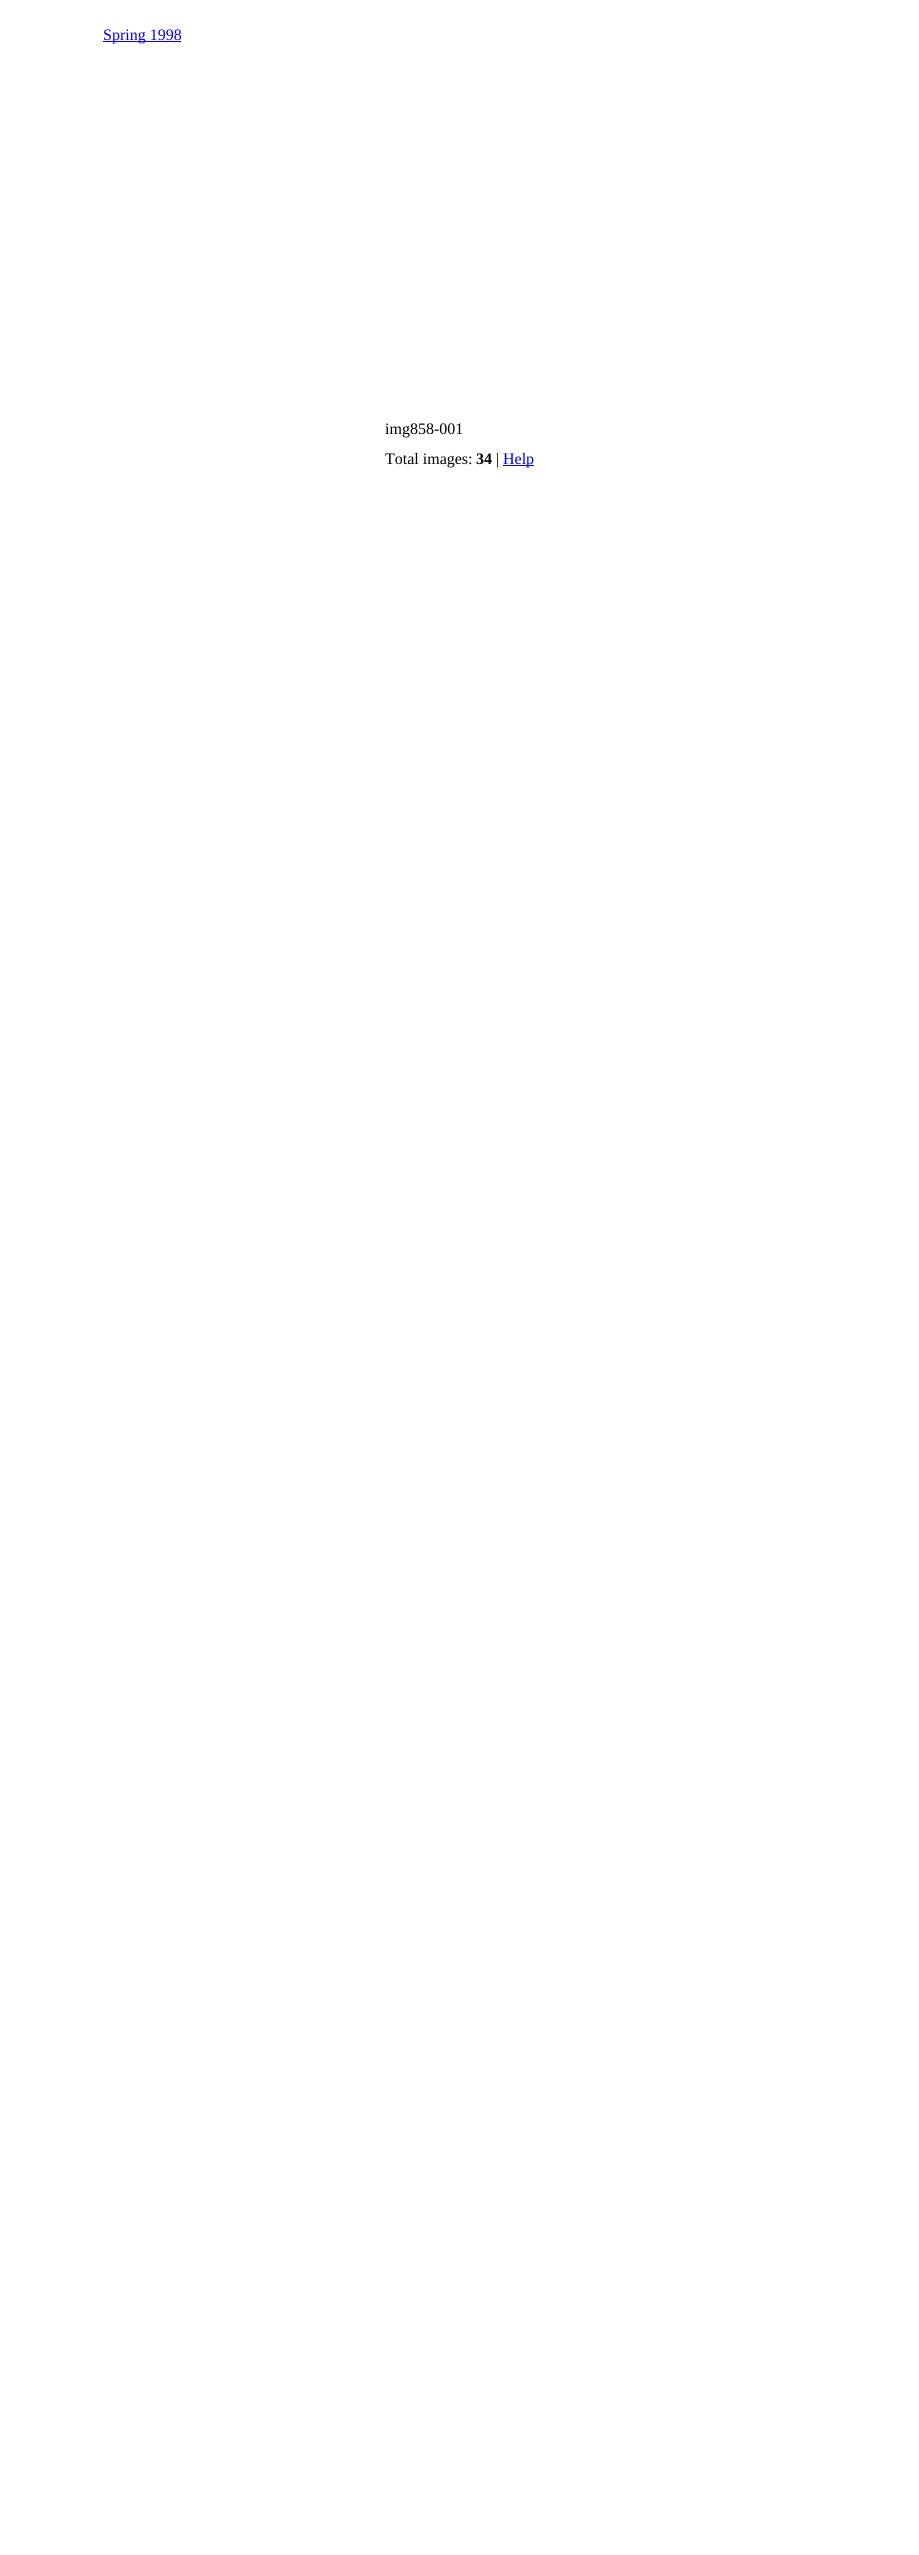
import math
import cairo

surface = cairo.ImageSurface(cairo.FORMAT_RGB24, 919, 2555)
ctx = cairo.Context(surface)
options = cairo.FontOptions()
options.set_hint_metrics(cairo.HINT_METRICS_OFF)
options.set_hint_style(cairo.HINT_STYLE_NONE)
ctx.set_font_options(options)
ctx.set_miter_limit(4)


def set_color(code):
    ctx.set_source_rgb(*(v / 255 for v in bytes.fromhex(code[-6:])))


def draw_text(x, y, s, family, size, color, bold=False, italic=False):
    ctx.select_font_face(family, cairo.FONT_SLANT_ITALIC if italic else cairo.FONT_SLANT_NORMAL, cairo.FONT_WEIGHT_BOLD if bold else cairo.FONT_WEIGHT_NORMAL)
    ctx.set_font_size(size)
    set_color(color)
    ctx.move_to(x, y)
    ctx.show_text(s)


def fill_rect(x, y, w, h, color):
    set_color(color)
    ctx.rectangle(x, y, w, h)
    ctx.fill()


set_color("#ffffff")
ctx.paint()
fill_rect(103, 41, 78, 1, "#0000ee")
draw_text(103, 40, "Spring 1998", "Liberation Serif", 16, "#0000ee")
draw_text(385, 434, "img858-001", "Liberation Serif", 16, "#000000")
draw_text(385, 464, "Total images:", "Liberation Serif", 16, "#000000")
draw_text(476, 464, "34", "Liberation Serif", 16, "#000000", bold=True)
draw_text(496, 464, "|", "Liberation Serif", 16, "#000000")
fill_rect(503, 465, 31, 1, "#0000ee")
draw_text(503, 464, "Help", "Liberation Serif", 16, "#0000ee")
surface.write_to_png("output.png")
